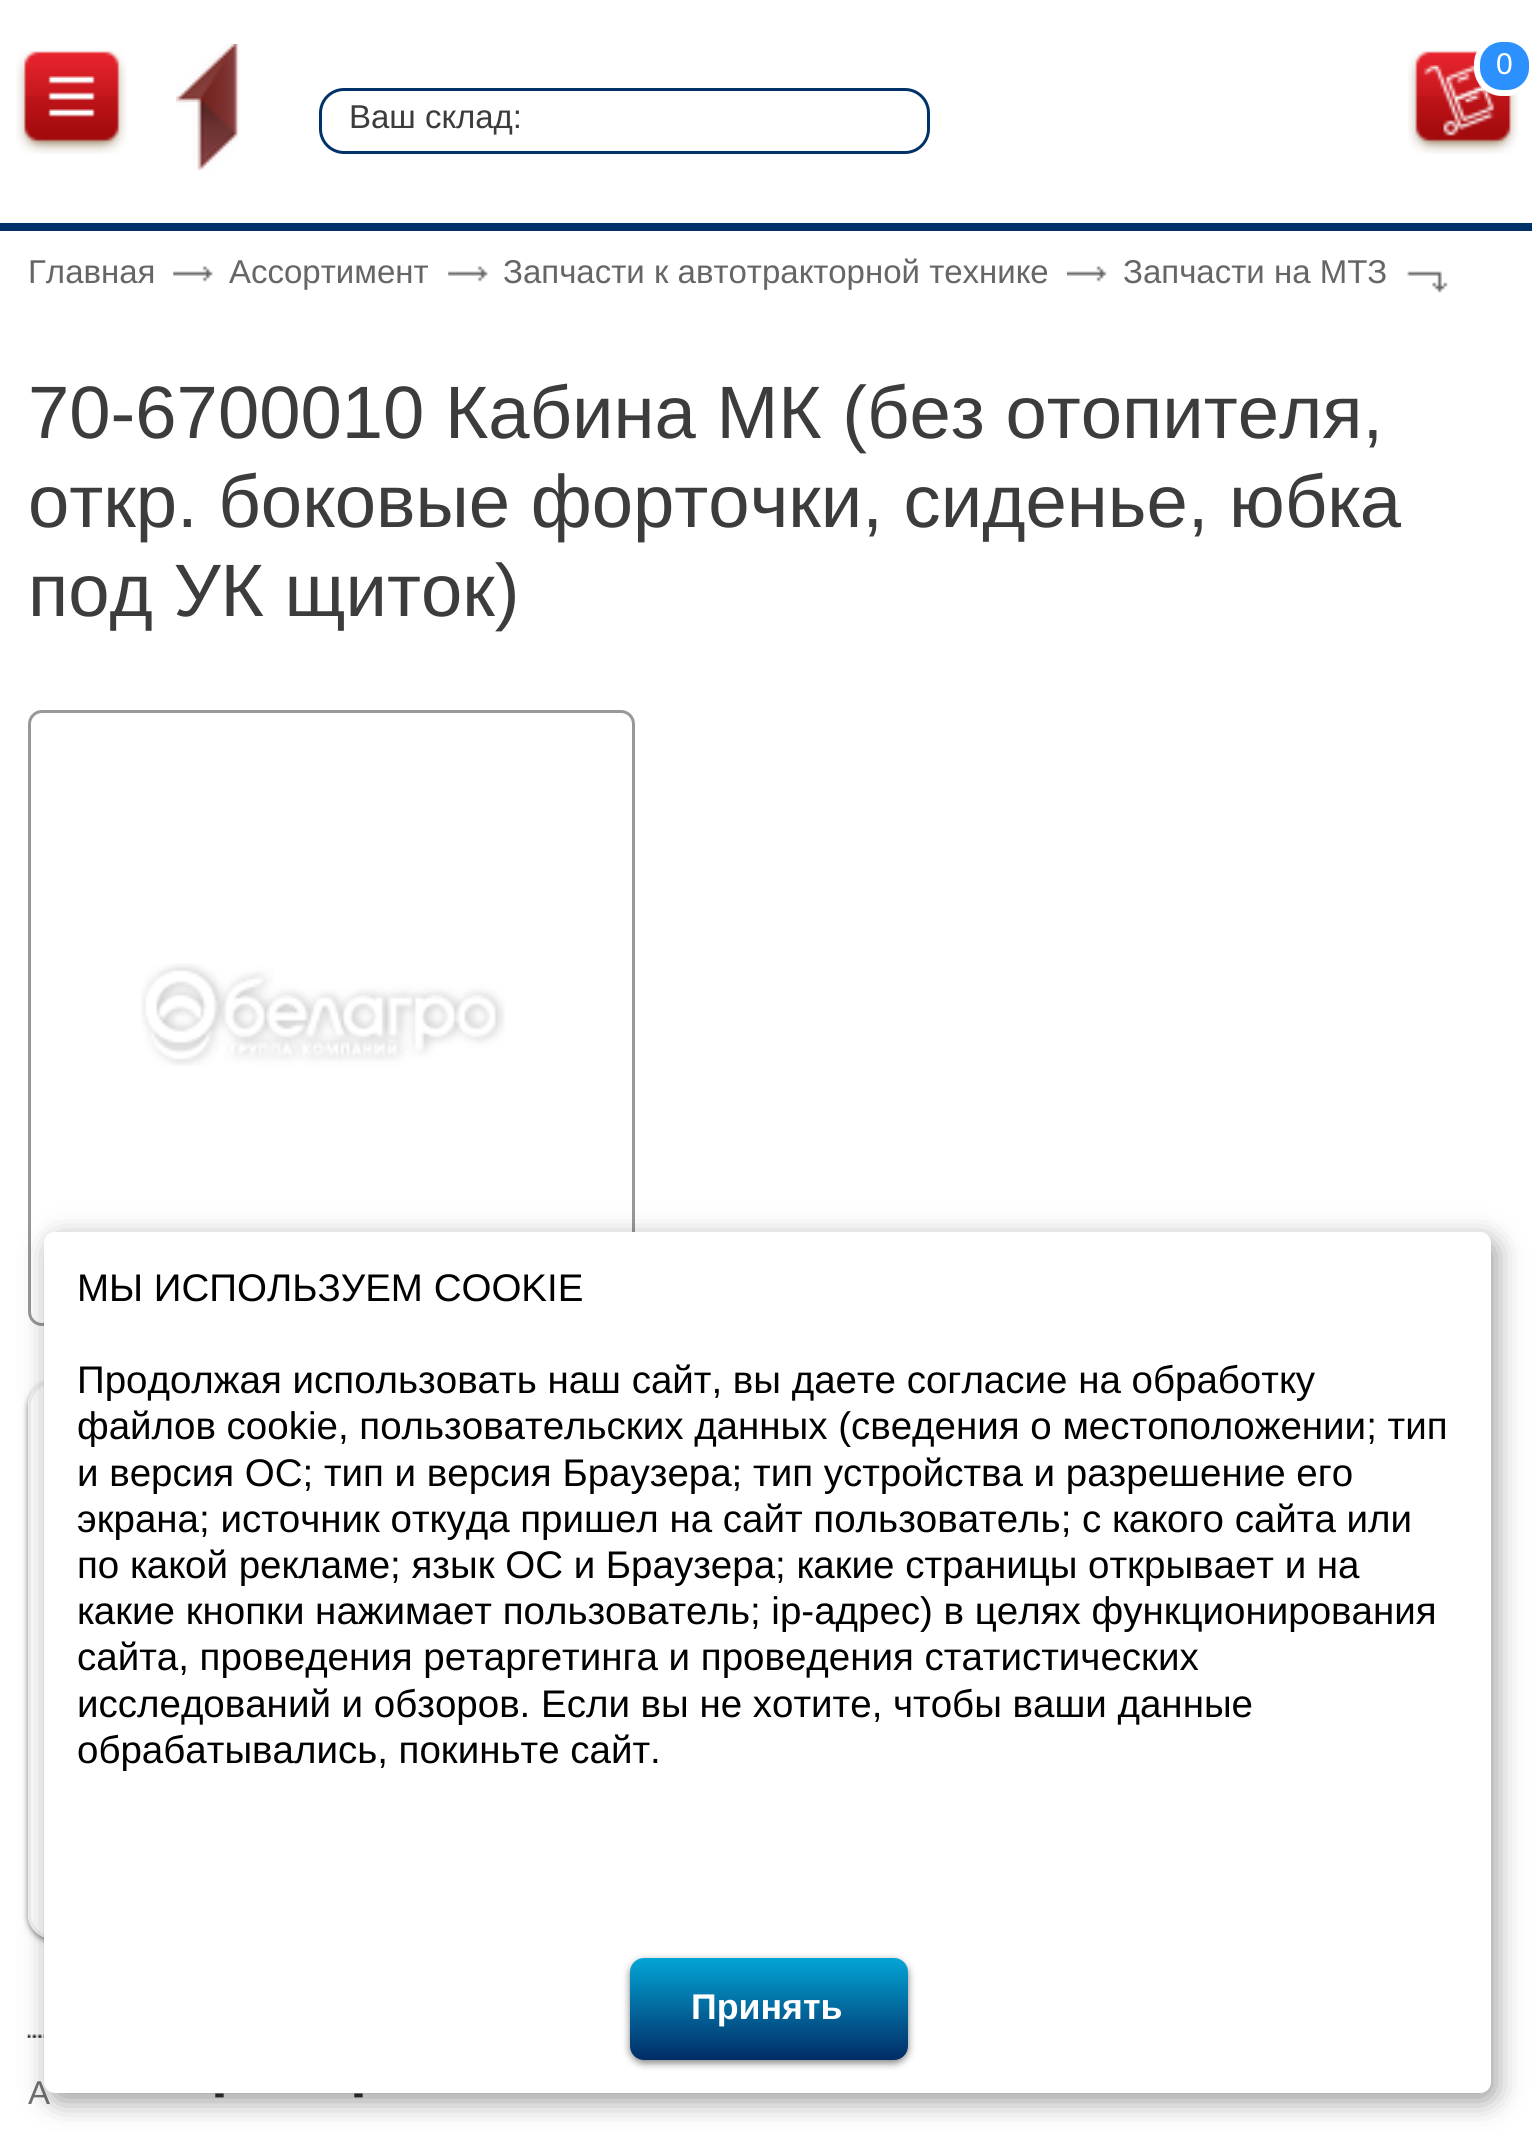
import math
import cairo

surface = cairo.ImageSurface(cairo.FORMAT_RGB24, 1532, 2132)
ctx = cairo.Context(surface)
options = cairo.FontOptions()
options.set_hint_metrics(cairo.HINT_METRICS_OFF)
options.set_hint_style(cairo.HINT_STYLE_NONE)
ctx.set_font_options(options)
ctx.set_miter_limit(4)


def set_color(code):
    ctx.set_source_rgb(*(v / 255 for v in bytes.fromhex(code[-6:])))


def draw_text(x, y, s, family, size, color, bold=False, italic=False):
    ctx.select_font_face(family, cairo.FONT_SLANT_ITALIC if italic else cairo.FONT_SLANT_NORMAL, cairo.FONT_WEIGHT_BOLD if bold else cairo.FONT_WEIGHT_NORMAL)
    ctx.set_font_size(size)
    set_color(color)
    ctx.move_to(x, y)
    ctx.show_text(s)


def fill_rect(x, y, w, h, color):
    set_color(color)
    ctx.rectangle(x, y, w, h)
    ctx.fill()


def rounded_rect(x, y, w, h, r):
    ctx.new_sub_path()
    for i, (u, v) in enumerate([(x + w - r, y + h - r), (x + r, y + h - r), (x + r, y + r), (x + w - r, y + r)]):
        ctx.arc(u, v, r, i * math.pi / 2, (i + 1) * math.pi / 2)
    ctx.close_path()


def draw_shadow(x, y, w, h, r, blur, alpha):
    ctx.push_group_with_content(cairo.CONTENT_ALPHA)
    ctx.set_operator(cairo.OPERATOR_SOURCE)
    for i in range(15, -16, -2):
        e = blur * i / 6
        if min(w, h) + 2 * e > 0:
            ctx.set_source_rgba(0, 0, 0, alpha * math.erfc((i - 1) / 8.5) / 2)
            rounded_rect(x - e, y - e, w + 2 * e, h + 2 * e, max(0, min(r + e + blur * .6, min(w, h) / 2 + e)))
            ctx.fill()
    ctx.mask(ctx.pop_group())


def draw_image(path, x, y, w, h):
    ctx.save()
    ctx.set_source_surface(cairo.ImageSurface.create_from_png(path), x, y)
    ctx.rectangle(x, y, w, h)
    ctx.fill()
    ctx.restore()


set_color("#ffffff")
ctx.paint()
draw_image("assets/img1.png", 16, 50, 111, 104)
draw_image("assets/img2.png", 176, 44, 64, 127)
draw_image("assets/img3.png", 1408, 50, 110, 104)
set_color("#2c90fe")
rounded_rect(1477, 39, 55, 54, 25)
ctx.fill_preserve()
set_color("#ffffff")
ctx.set_line_width(6)
ctx.stroke()
draw_text(1496, 74, "0", "Liberation Sans", 30, "#ffffff")
rounded_rect(320.5, 89.5, 608, 63, 23.5)
set_color("#003169")
ctx.set_line_width(3)
ctx.stroke()
draw_text(349, 128, "Ваш склад:", "Liberation Sans", 33, "#3c3c3c")
fill_rect(0, 223, 1532, 8, "#003169")
draw_text(28, 283, "Главная", "Liberation Sans", 33, "#666666")
draw_image("assets/img4.png", 173, 266, 40, 16)
draw_text(229, 283, "Ассортимент", "Liberation Sans", 33, "#666666")
draw_image("assets/img5.png", 448, 266, 40, 16)
draw_text(503, 283, "Запчасти к автотракторной технике", "Liberation Sans", 33, "#666666")
draw_image("assets/img6.png", 1067, 266, 40, 16)
draw_text(1123, 283, "Запчасти на МТЗ", "Liberation Sans", 33, "#666666")
draw_image("assets/img7.png", 1407, 271, 41, 22)
draw_text(28, 438, "70-6700010 Кабина МК (без отопителя,", "Liberation Sans", 74.25, "#3c3c3c")
draw_text(28, 527, "откр. боковые форточки, сиденье, юбка", "Liberation Sans", 74.25, "#3c3c3c")
draw_text(28, 616, "под УК щиток)", "Liberation Sans", 74.25, "#3c3c3c")
rounded_rect(29.5, 711.5, 604, 613, 12.5)
set_color("#989898")
ctx.stroke()
draw_image("assets/img8.png", 141, 963, 364, 103)
ctx.save()
ctx.set_fill_rule(cairo.FILL_RULE_EVEN_ODD)
ctx.new_path()
ctx.move_to(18, 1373)
ctx.line_to(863, 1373)
ctx.line_to(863, 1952)
ctx.line_to(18, 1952)
ctx.close_path()
ctx.move_to(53, 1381)
ctx.line_to(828, 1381)
ctx.curve_to(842, 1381, 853, 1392, 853, 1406)
ctx.line_to(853, 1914)
ctx.curve_to(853, 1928, 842, 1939, 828, 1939)
ctx.line_to(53, 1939)
ctx.curve_to(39, 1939, 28, 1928, 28, 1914)
ctx.line_to(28, 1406)
ctx.curve_to(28, 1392, 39, 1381, 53, 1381)
ctx.close_path()
ctx.clip()
set_color("#000000")
draw_shadow(28, 1383, 825, 559, 25, 3, 0.5)
ctx.restore()
rounded_rect(29.5, 1382.5, 822, 555, 23.5)
set_color("#f0f0f0")
ctx.stroke()
draw_image("assets/img9.png", 27, 2034, 17, 4)
draw_text(28, 2104, "А", "Liberation Sans", 33, "#727272")
draw_text(214, 2104, "-", "Liberation Sans", 33, "#333333", bold=True)
draw_text(353, 2104, "-", "Liberation Sans", 33, "#333333", bold=True)
set_color("#000000")
draw_shadow(50, 1240, 1446, 861, 11, 14, 0.4)
set_color("#ffffff")
rounded_rect(44, 1232, 1447, 861, 11)
ctx.fill()
draw_text(77, 1301, "МЫ ИСПОЛЬЗУЕМ COOKIE", "Liberation Sans", 38.5, "#000000")
draw_text(77, 1393, "Продолжая использовать наш сайт, вы даете согласие на обработку", "Liberation Sans", 38.5, "#000000")
draw_text(77, 1439, "файлов cookie, пользовательских данных (сведения о местоположении; тип", "Liberation Sans", 38.5, "#000000")
draw_text(77, 1486, "и версия ОС; тип и версия Браузера; тип устройства и разрешение его", "Liberation Sans", 38.5, "#000000")
draw_text(77, 1532, "экрана; источник откуда пришел на сайт пользователь; с какого сайта или", "Liberation Sans", 38.5, "#000000")
draw_text(77, 1578, "по какой рекламе; язык ОС и Браузера; какие страницы открывает и на", "Liberation Sans", 38.5, "#000000")
draw_text(77, 1624, "какие кнопки нажимает пользователь; ip-адрес) в целях функционирования", "Liberation Sans", 38.5, "#000000")
draw_text(77, 1670, "сайта, проведения ретаргетинга и проведения статистических", "Liberation Sans", 38.5, "#000000")
draw_text(77, 1717, "исследований и обзоров. Если вы не хотите, чтобы ваши данные", "Liberation Sans", 38.5, "#000000")
draw_text(77, 1763, "обрабатывались, покиньте сайт.", "Liberation Sans", 38.5, "#000000")
set_color("#000000")
draw_shadow(630, 1961, 278, 102, 14, 4, 0.5)
gradient = cairo.LinearGradient(768, 1958, 768, 2060)
gradient.add_color_stop_rgba(0, 0.012, 0.647, 0.839, 1)
gradient.add_color_stop_rgba(1, 0.008, 0.173, 0.4, 1)
ctx.set_source(gradient)
rounded_rect(630, 1958, 278, 102, 14)
ctx.fill()
draw_text(691, 2019, "Принять", "Liberation Sans", 35.75, "#ffffff", bold=True)
surface.write_to_png("output.png")
